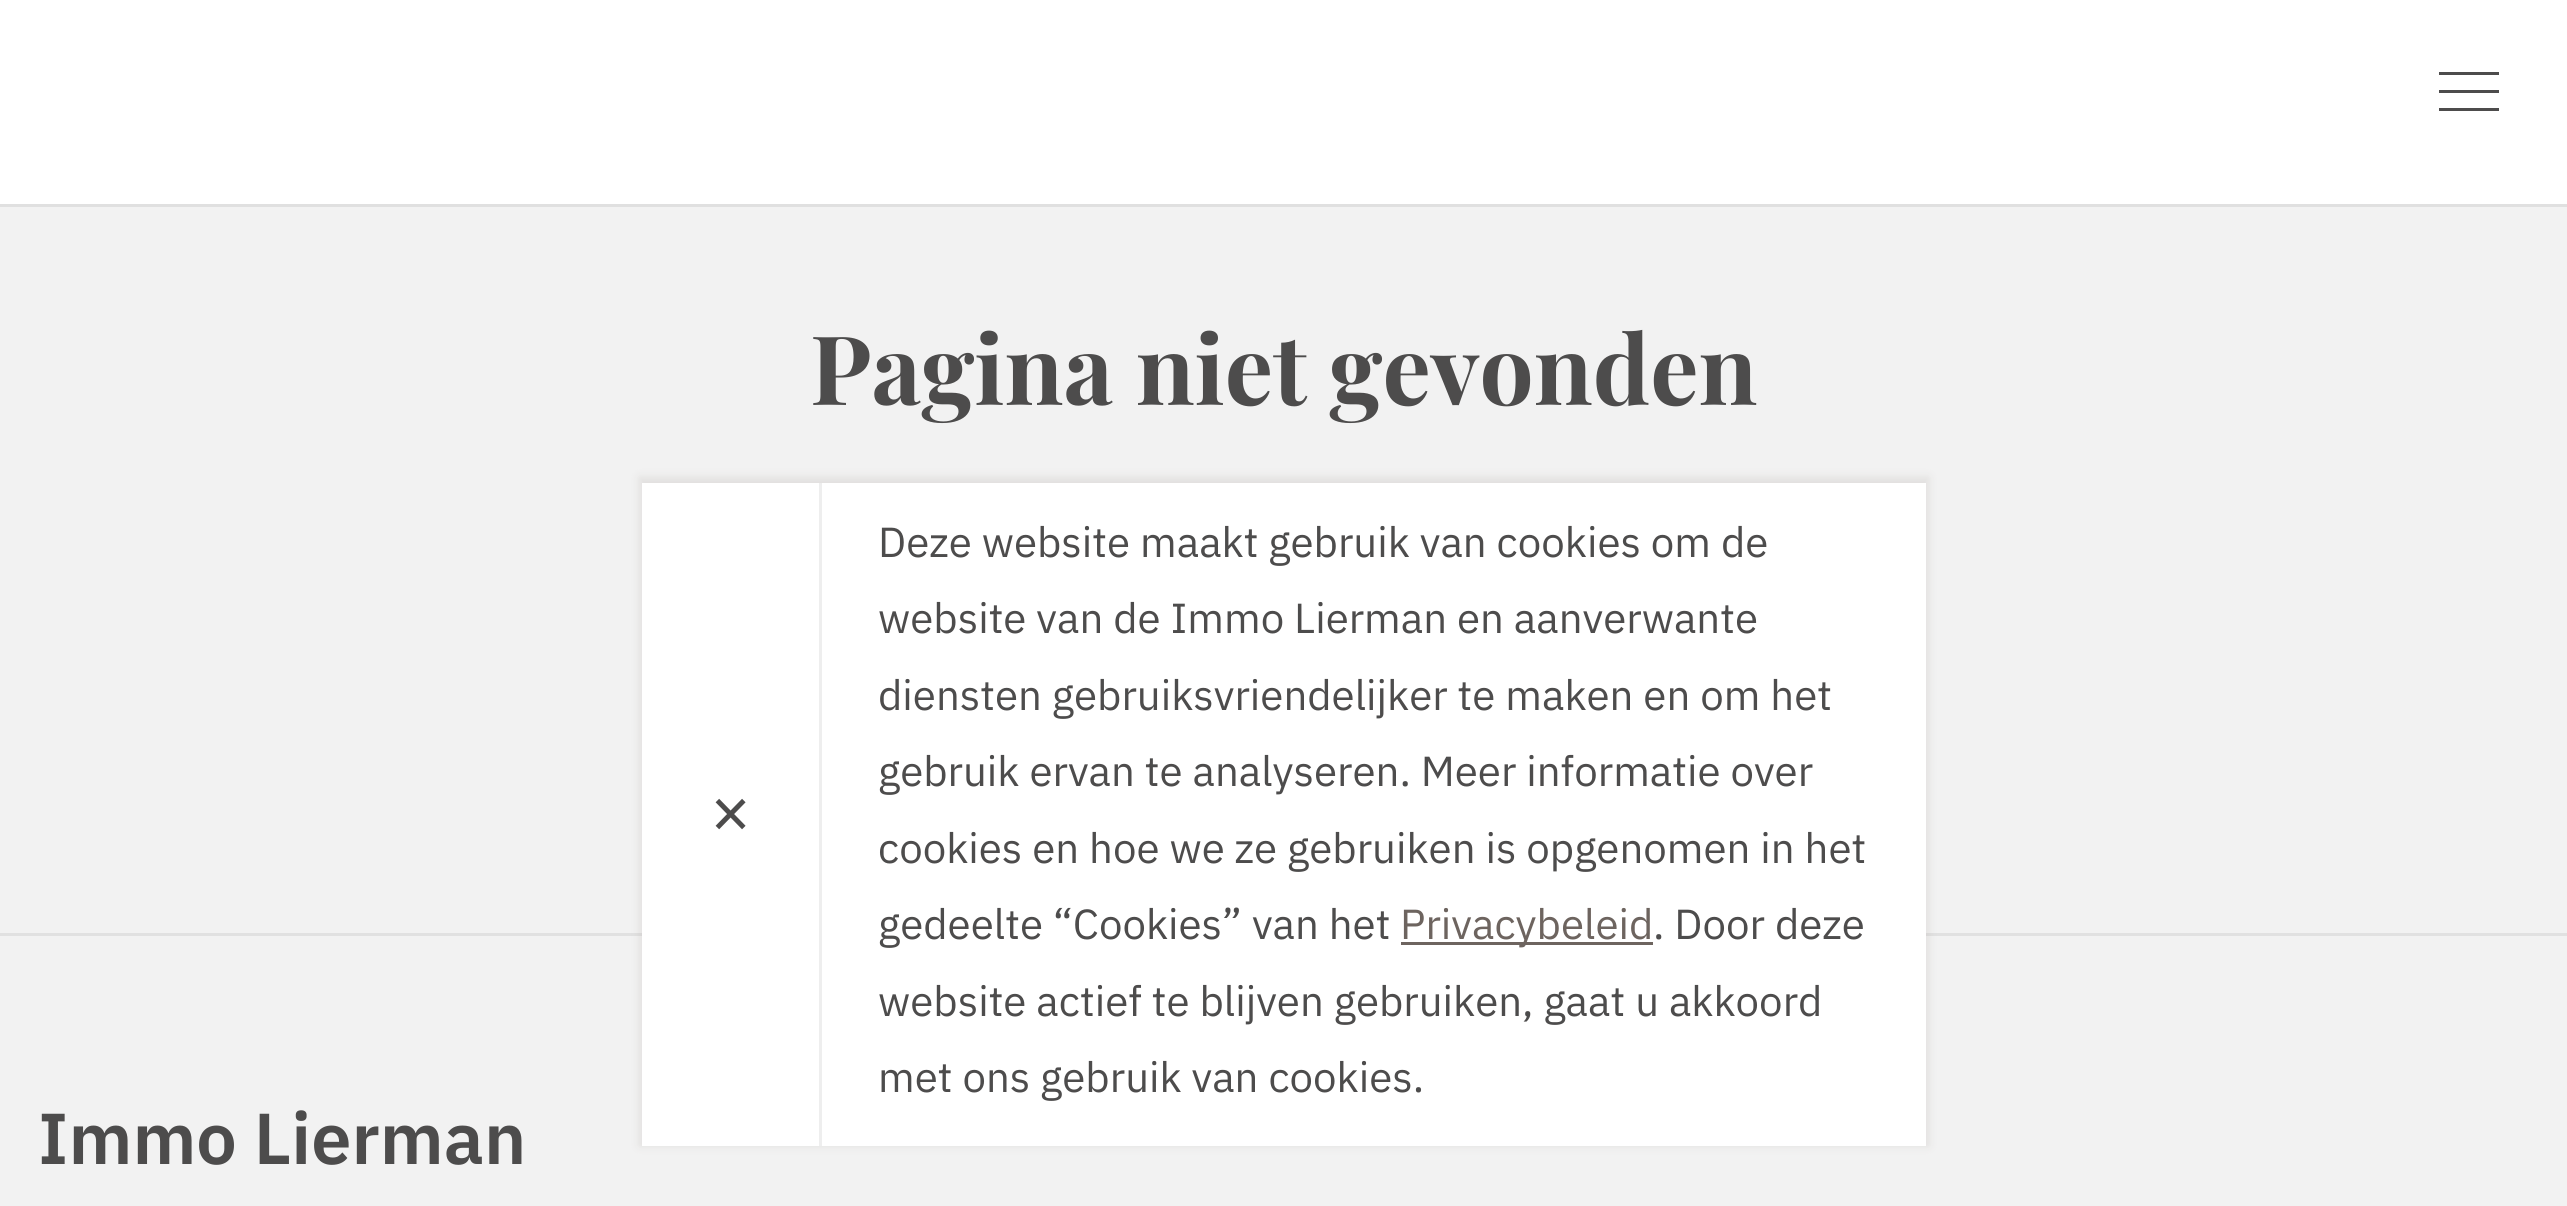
import math
import cairo

surface = cairo.ImageSurface(cairo.FORMAT_RGB24, 2567, 1206)
ctx = cairo.Context(surface)
options = cairo.FontOptions()
options.set_hint_metrics(cairo.HINT_METRICS_OFF)
options.set_hint_style(cairo.HINT_STYLE_NONE)
ctx.set_font_options(options)
ctx.set_miter_limit(4)


def set_color(code):
    ctx.set_source_rgb(*(v / 255 for v in bytes.fromhex(code[-6:])))


def draw_text(x, y, s, family, size, color, bold=False, italic=False):
    ctx.select_font_face(family, cairo.FONT_SLANT_ITALIC if italic else cairo.FONT_SLANT_NORMAL, cairo.FONT_WEIGHT_BOLD if bold else cairo.FONT_WEIGHT_NORMAL)
    ctx.set_font_size(size)
    set_color(color)
    ctx.move_to(x, y)
    ctx.show_text(s)


def fill_rect(x, y, w, h, color):
    set_color(color)
    ctx.rectangle(x, y, w, h)
    ctx.fill()


def rounded_rect(x, y, w, h, r):
    ctx.new_sub_path()
    for i, (u, v) in enumerate([(x + w - r, y + h - r), (x + r, y + h - r), (x + r, y + r), (x + w - r, y + r)]):
        ctx.arc(u, v, r, i * math.pi / 2, (i + 1) * math.pi / 2)
    ctx.close_path()


def draw_shadow(x, y, w, h, r, blur, alpha):
    ctx.push_group_with_content(cairo.CONTENT_ALPHA)
    ctx.set_operator(cairo.OPERATOR_SOURCE)
    for i in range(15, -16, -2):
        e = blur * i / 6
        if min(w, h) + 2 * e > 0:
            ctx.set_source_rgba(0, 0, 0, alpha * math.erfc((i - 1) / 8.5) / 2)
            rounded_rect(x - e, y - e, w + 2 * e, h + 2 * e, max(0, min(r + e + blur * .6, min(w, h) / 2 + e)))
            ctx.fill()
    ctx.mask(ctx.pop_group())


set_color("#ffffff")
ctx.paint()
fill_rect(0, 204, 2567, 3, "#e0e0e0")
fill_rect(2439, 72, 60, 3, "#4d4c4c")
fill_rect(2439, 90, 60, 3, "#4d4c4c")
fill_rect(2439, 108, 60, 3, "#4d4c4c")
fill_rect(0, 207, 2567, 726, "#f2f2f2")
draw_text(810, 405, "Pagina niet gevonden", "Playfair Display", 96, "#4d4c4c", bold=True)
fill_rect(0, 936, 2567, 270, "#f2f2f2")
fill_rect(0, 933, 2567, 3, "#e1e1e1")
draw_text(38, 1164, "Immo Lierman", "IBM Plex Sans SemiBold", 72, "#4d4c4c")
set_color("#a09792")
draw_shadow(639, 477, 1290, 669, 0, 4.5, 0.2)
fill_rect(642, 483, 1284, 663, "#ffffff")
fill_rect(819, 483, 3, 663, "#eeeeee")
draw_text(709, 836, "×", "IBM Plex Sans", 72, "#4d4c4c")
draw_text(878, 557, "Deze website maakt gebruik van cookies om de", "IBM Plex Sans", 42, "#4d4c4c")
draw_text(878, 633, "website van de Immo Lierman en aanverwante", "IBM Plex Sans", 42, "#4d4c4c")
draw_text(878, 710, "diensten gebruiksvriendelijker te maken en om het", "IBM Plex Sans", 42, "#4d4c4c")
draw_text(878, 786, "gebruik ervan te analyseren. Meer informatie over", "IBM Plex Sans", 42, "#4d4c4c")
draw_text(878, 863, "cookies en hoe we ze gebruiken is opgenomen in het", "IBM Plex Sans", 42, "#4d4c4c")
draw_text(878, 939, "gedeelte “Cookies” van het", "IBM Plex Sans", 42, "#4d4c4c")
fill_rect(1401, 942, 252, 3, "#6d645f")
draw_text(1400, 939, "Privacybeleid", "IBM Plex Sans", 42, "#6d645f")
draw_text(1653, 939, ". Door deze", "IBM Plex Sans", 42, "#4d4c4c")
draw_text(878, 1016, "website actief te blijven gebruiken, gaat u akkoord", "IBM Plex Sans", 42, "#4d4c4c")
draw_text(878, 1092, "met ons gebruik van cookies.", "IBM Plex Sans", 42, "#4d4c4c")
surface.write_to_png("output.png")
